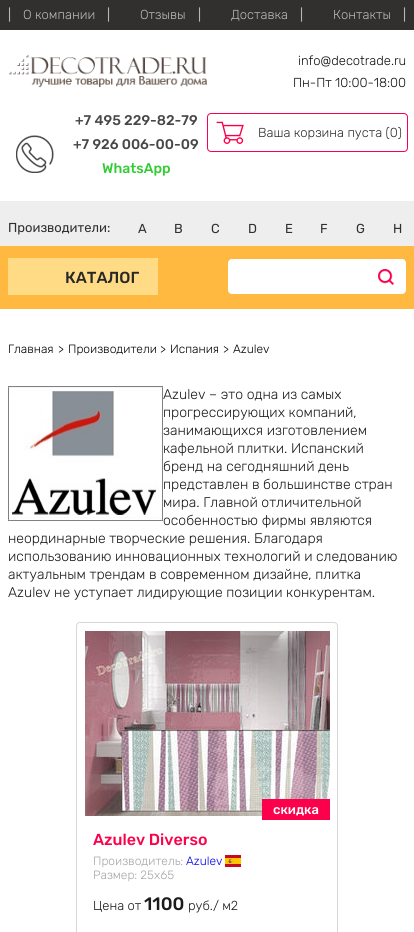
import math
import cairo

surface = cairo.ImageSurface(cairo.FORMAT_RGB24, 414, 932)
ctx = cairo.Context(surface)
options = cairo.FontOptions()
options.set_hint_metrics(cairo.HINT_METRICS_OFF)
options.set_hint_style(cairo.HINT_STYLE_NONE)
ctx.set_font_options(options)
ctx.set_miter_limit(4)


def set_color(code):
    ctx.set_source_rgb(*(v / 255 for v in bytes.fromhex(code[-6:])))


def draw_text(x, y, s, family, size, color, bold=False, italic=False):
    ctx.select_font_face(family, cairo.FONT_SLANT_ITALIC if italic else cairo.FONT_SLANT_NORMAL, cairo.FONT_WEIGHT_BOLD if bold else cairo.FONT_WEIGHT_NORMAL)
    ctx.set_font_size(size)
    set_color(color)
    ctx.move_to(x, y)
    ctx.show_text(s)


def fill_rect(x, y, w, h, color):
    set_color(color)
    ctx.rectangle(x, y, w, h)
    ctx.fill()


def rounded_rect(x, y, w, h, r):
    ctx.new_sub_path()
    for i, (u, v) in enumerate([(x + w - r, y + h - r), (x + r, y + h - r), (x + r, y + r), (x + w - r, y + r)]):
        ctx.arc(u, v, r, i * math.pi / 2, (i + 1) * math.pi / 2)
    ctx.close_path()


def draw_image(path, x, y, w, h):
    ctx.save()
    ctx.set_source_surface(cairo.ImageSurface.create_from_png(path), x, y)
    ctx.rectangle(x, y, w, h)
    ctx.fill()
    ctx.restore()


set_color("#ffffff")
ctx.paint()
fill_rect(0, 0, 414, 30, "#32302e")
draw_text(8, 19, "|", "Rubik", 13, "#b6b6b6")
draw_text(23, 19, "О компании", "Rubik Light", 13, "#b6b6b6")
draw_text(107, 19, "|", "Rubik", 13, "#b6b6b6")
draw_text(140, 19, "Отзывы", "Rubik Light", 13, "#b6b6b6")
draw_text(198, 19, "|", "Rubik", 13, "#b6b6b6")
draw_text(231, 19, "Доставка", "Rubik Light", 13, "#b6b6b6")
draw_text(300, 19, "|", "Rubik", 13, "#b6b6b6")
draw_text(333, 19, "Контакты", "Rubik Light", 13, "#b6b6b6")
draw_text(403, 19, "|", "Rubik", 13, "#b6b6b6")
draw_image("assets/img1.png", 8, 54, 199, 34)
draw_text(298, 65, "info@decotrade.ru", "Rubik Light", 13, "#111111")
draw_text(293, 87, "Пн-Пт 10:00-18:00", "Rubik Light", 13, "#111111")
draw_image("assets/img2.png", 16, 135, 38, 38)
draw_text(75, 125, "+7 495 229-82-79", "Rubik Medium", 14, "#474747")
draw_text(73, 149, "+7 926 006-00-09", "Rubik Medium", 14, "#474747")
draw_text(102, 173, "WhatsApp", "Rubik Medium", 14, "#33cc33")
rounded_rect(207.5, 113.5, 200, 38, 3.5)
set_color("#fb004b")
ctx.set_line_width(1)
ctx.stroke()
draw_image("assets/img3.png", 216, 121, 28, 23)
draw_text(258, 137, "Ваша корзина пуста (0)", "Rubik Light", 13, "#32302e")
fill_rect(0, 201, 414, 45, "#eeeeee")
draw_text(8, 232, "Производители:", "Rubik", 13, "#32302e")
draw_text(138, 233, "A", "Rubik", 13, "#32302e")
draw_text(174, 233, "B", "Rubik", 13, "#32302e")
draw_text(211, 233, "C", "Rubik", 13, "#32302e")
draw_text(248, 233, "D", "Rubik", 13, "#32302e")
draw_text(285, 233, "E", "Rubik", 13, "#32302e")
draw_text(320, 233, "F", "Rubik", 13, "#32302e")
draw_text(356, 233, "G", "Rubik", 13, "#32302e")
draw_text(393, 233, "H", "Rubik", 13, "#32302e")
fill_rect(0, 246, 414, 63, "#ffb940")
fill_rect(8, 258, 150, 37, "#ffdb85")
draw_text(65, 283, "КАТАЛОГ", "Rubik Medium", 16, "#282828")
set_color("#ffffff")
rounded_rect(228, 259, 178, 35, 4)
ctx.fill()
draw_image("assets/img4.png", 378, 269, 16, 16)
draw_text(8, 353, "Главная", "Rubik Light", 12, "#020202")
draw_text(58, 353, ">", "Rubik Light", 12, "#020202")
draw_text(68, 353, "Производители", "Rubik Light", 12, "#020202")
draw_text(160, 353, ">", "Rubik Light", 12, "#020202")
draw_text(170, 353, "Испания", "Rubik Light", 12, "#020202")
draw_text(223, 353, ">", "Rubik Light", 12, "#020202")
draw_text(233, 353, "Azulev", "Rubik Light", 12, "#020202")
draw_image("assets/img5.png", 8, 386, 155, 135)
draw_text(163, 399, "Azulev – это одна из самых", "Rubik Light", 14, "#1c1c1c")
draw_text(163, 417, "прогрессирующих компаний,", "Rubik Light", 14, "#1c1c1c")
draw_text(163, 435, "занимающихся изготовлением", "Rubik Light", 14, "#1c1c1c")
draw_text(163, 453, "кафельной плитки. Испанский", "Rubik Light", 14, "#1c1c1c")
draw_text(163, 471, "бренд на сегодняшний день", "Rubik Light", 14, "#1c1c1c")
draw_text(163, 489, "представлен в большинстве стран", "Rubik Light", 14, "#1c1c1c")
draw_text(163, 507, "мира. Главной отличительной", "Rubik Light", 14, "#1c1c1c")
draw_text(163, 525, "особенностью фирмы являются", "Rubik Light", 14, "#1c1c1c")
draw_text(8, 543, "неординарные творческие решения. Благодаря", "Rubik Light", 14, "#1c1c1c")
draw_text(8, 561, "использованию инновационных технологий и следованию", "Rubik Light", 14, "#1c1c1c")
draw_text(8, 579, "актуальным трендам в современном дизайне, плитка", "Rubik Light", 14, "#1c1c1c")
draw_text(8, 597, "Azulev не уступает лидирующие позиции конкурентам.", "Rubik Light", 14, "#1c1c1c")
rounded_rect(76.5, 622.5, 261, 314, 3.5)
set_color("#d7d7d7")
ctx.stroke()
draw_image("assets/img6.png", 85, 631, 245, 185)
fill_rect(262, 799, 68, 21, "#fb004b")
draw_text(273, 814, "скидка", "Rubik Medium", 13, "#ffffff")
draw_text(93, 845, "Azulev Diverso", "Rubik Medium", 16, "#fb004b")
draw_text(93, 865, "Производитель:", "Rubik Light", 12, "#a6a6a6")
draw_text(186, 865, "Azulev", "Rubik Light", 12, "#0000ee")
draw_image("assets/img7.png", 225, 855, 16, 12)
draw_text(93, 879, "Размер: 25x65", "Rubik Light", 12, "#a6a6a6")
draw_text(93, 910, "Цена от", "Rubik Light", 13, "#1c1c1c")
draw_text(144, 910, "1100", "Rubik Medium", 18, "#1c1c1c")
draw_text(188, 910, "руб./ м2", "Rubik Light", 13, "#1c1c1c")
surface.write_to_png("output.png")
